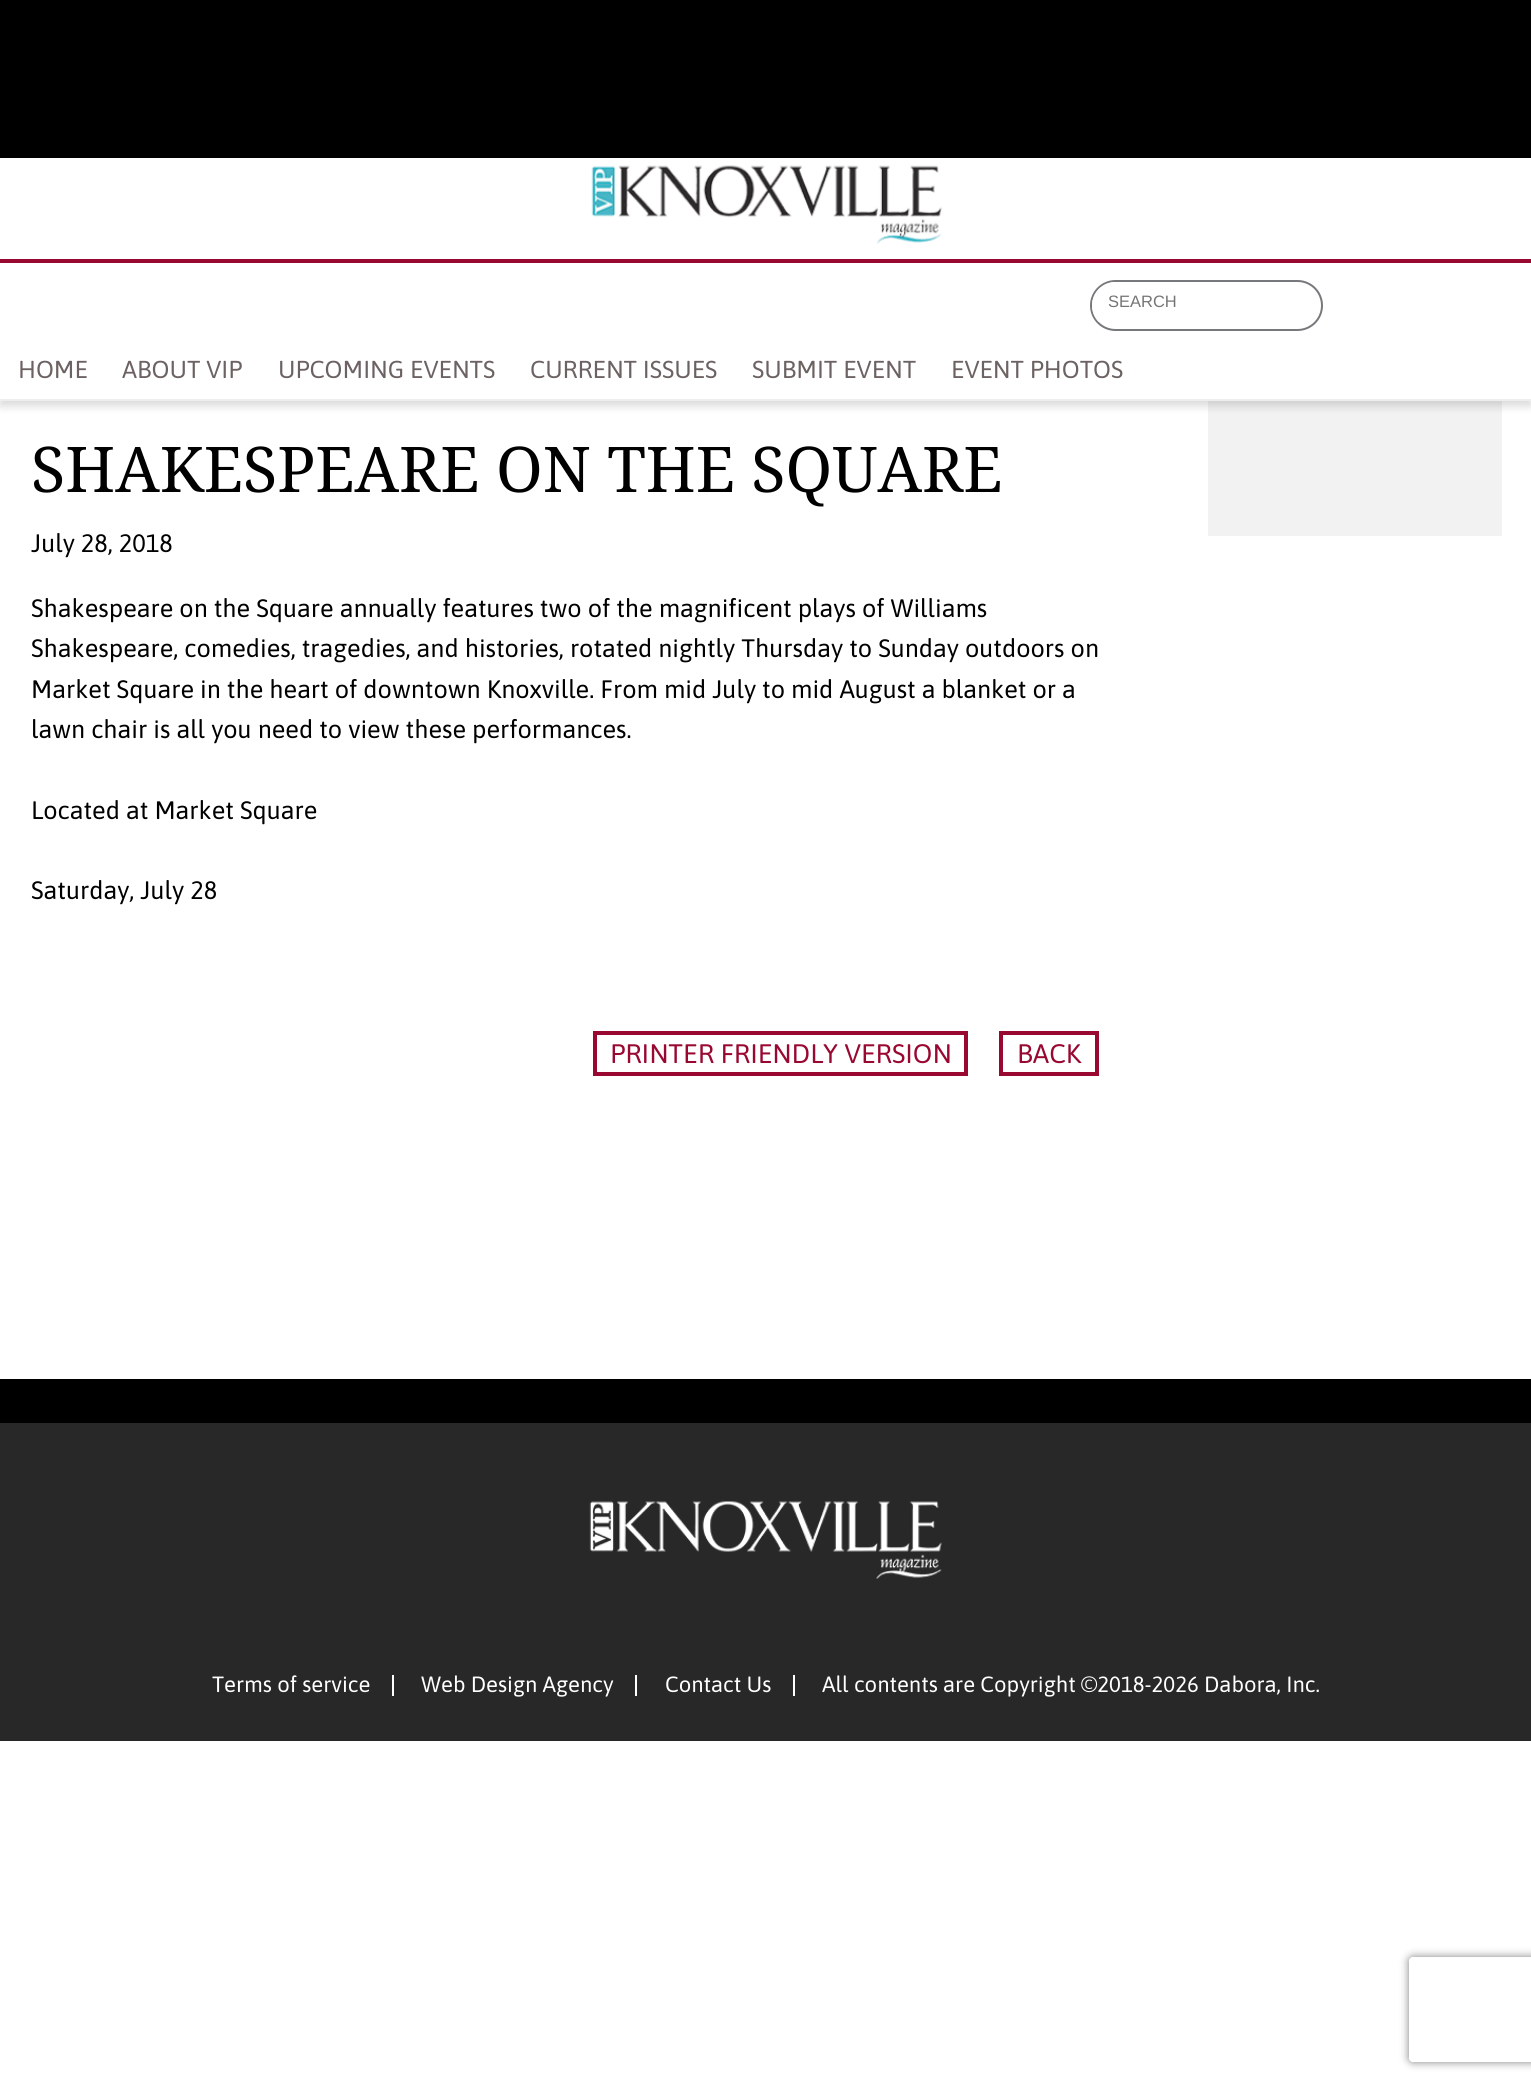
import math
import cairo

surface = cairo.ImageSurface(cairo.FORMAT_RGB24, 1531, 2086)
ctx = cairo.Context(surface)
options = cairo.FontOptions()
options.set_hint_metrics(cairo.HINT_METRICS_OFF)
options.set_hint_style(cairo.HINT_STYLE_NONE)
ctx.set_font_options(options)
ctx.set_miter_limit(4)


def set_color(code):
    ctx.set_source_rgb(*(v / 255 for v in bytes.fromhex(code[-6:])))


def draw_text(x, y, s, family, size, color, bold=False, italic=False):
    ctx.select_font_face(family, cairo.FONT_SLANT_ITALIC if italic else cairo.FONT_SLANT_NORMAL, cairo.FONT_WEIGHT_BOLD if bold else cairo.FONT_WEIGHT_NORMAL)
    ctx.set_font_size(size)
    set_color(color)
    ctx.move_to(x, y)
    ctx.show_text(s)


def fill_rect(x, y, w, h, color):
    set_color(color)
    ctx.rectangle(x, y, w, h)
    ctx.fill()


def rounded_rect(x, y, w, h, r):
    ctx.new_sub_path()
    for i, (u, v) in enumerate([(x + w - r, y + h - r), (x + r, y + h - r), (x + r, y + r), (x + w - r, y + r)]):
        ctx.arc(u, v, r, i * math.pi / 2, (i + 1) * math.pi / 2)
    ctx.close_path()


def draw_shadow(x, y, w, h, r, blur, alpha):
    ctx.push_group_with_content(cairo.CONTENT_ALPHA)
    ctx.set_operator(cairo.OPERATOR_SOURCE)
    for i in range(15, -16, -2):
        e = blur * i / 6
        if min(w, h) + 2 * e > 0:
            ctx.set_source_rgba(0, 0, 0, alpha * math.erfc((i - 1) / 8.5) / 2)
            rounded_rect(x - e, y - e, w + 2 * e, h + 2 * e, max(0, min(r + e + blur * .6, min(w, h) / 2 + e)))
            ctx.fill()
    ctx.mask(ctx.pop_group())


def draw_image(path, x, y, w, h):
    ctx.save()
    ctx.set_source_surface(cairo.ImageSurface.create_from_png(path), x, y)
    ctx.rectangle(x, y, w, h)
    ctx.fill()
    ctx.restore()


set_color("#ffffff")
ctx.paint()
fill_rect(1208, 401, 294, 135, "#f2f2f2")
set_color("#000000")
draw_shadow(0, 5, 1531, 401, 0, 4.5, 0.15)
fill_rect(0, 158, 1531, 241, "#ffffff")
fill_rect(0, 399, 1531, 2, "#eeeeee")
fill_rect(0, 0, 1531, 158, "#000000")
fill_rect(0, 259, 1531, 4, "#990831")
draw_image("assets/img1.png", 591, 165, 351, 79)
rounded_rect(1091, 281, 231, 49, 24.5)
set_color("#77787b")
ctx.stroke()
ctx.save()
rounded_rect(1092, 282, 229, 47, 23.5)
ctx.clip()
set_color("#ffffff")
ctx.new_path()
ctx.move_to(1115.5, 282)
ctx.line_to(1288, 282)
ctx.line_to(1288, 322)
ctx.line_to(1092, 322)
ctx.line_to(1092, 305.5)
ctx.curve_to(1092, 292.5, 1102.5, 282, 1115.5, 282)
ctx.close_path()
ctx.fill()
ctx.restore()
draw_text(1108, 307, "SEARCH", "Liberation Sans", 16.5, "#757575")
draw_text(18, 378, "HOME", "Asap", 24.5, "#6c6262")
draw_text(122, 378, "ABOUT VIP", "Asap", 24.5, "#6c6262")
draw_text(278, 378, "UPCOMING EVENTS", "Asap", 24.5, "#6c6262")
draw_text(530, 378, "CURRENT ISSUES", "Asap", 24.5, "#6c6262")
draw_text(752, 378, "SUBMIT EVENT", "Asap", 24.5, "#6c6262")
draw_text(951, 378, "EVENT PHOTOS", "Asap", 24.5, "#6c6262")
draw_text(31, 492, "SHAKESPEARE ON THE SQUARE", "Noto Serif", 63, "#000000")
draw_text(31, 552, "July 28, 2018", "Asap", 25.2, "#000000")
draw_text(31, 617, "Shakespeare on the Square annually features two of the magnificent plays of Williams", "Asap", 25.2, "#000000")
draw_text(31, 657, "Shakespeare, comedies, tragedies, and histories, rotated nightly Thursday to Sunday outdoors on", "Asap", 25.2, "#000000")
draw_text(31, 698, "Market Square in the heart of downtown Knoxville. From mid July to mid August a blanket or a", "Asap", 25.2, "#000000")
draw_text(31, 738, "lawn chair is all you need to view these performances.", "Asap", 25.2, "#000000")
draw_text(31, 819, "Located at Market Square", "Asap", 25.2, "#000000")
draw_text(31, 899, "Saturday, July 28", "Asap", 25.2, "#000000")
ctx.rectangle(595, 1033, 371, 41)
set_color("#990831")
ctx.set_line_width(4)
ctx.stroke()
draw_text(610, 1063, "PRINTER FRIENDLY VERSION", "Asap", 26.75, "#990831")
ctx.rectangle(1001, 1033, 96, 41)
ctx.stroke()
draw_text(1017, 1063, "BACK", "Asap", 26.75, "#990831")
fill_rect(0, 1423, 1531, 318, "#282828")
fill_rect(0, 1379, 1531, 44, "#000000")
draw_image("assets/img2.png", 589, 1501, 353, 78)
fill_rect(392, 1675, 2, 21, "#ffffff")
draw_text(212, 1692, "Terms of service", "Asap", 22.05, "#ffffff")
fill_rect(635, 1675, 2, 21, "#ffffff")
draw_text(421, 1692, "Web Design Agency", "Asap", 22.05, "#ffffff")
fill_rect(793, 1675, 2, 21, "#ffffff")
draw_text(665, 1692, "Contact Us", "Asap", 22.05, "#ffffff")
draw_text(822, 1692, "All contents are Copyright ©2018-2026 Dabora, Inc.", "Asap", 22.05, "#ffffff")
ctx.save()
ctx.set_fill_rule(cairo.FILL_RULE_EVEN_ODD)
ctx.new_path()
ctx.move_to(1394, 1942)
ctx.line_to(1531, 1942)
ctx.line_to(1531, 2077)
ctx.line_to(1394, 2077)
ctx.close_path()
ctx.move_to(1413, 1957)
ctx.line_to(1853, 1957)
ctx.curve_to(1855, 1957, 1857, 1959, 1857, 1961)
ctx.line_to(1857, 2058)
ctx.curve_to(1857, 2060, 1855, 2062, 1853, 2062)
ctx.line_to(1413, 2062)
ctx.curve_to(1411, 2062, 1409, 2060, 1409, 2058)
ctx.line_to(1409, 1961)
ctx.curve_to(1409, 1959, 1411, 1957, 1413, 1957)
ctx.close_path()
ctx.clip()
set_color("#808080")
draw_shadow(1409, 1957, 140, 105, 4, 4.5, 1)
ctx.restore()
surface.write_to_png("output.png")
